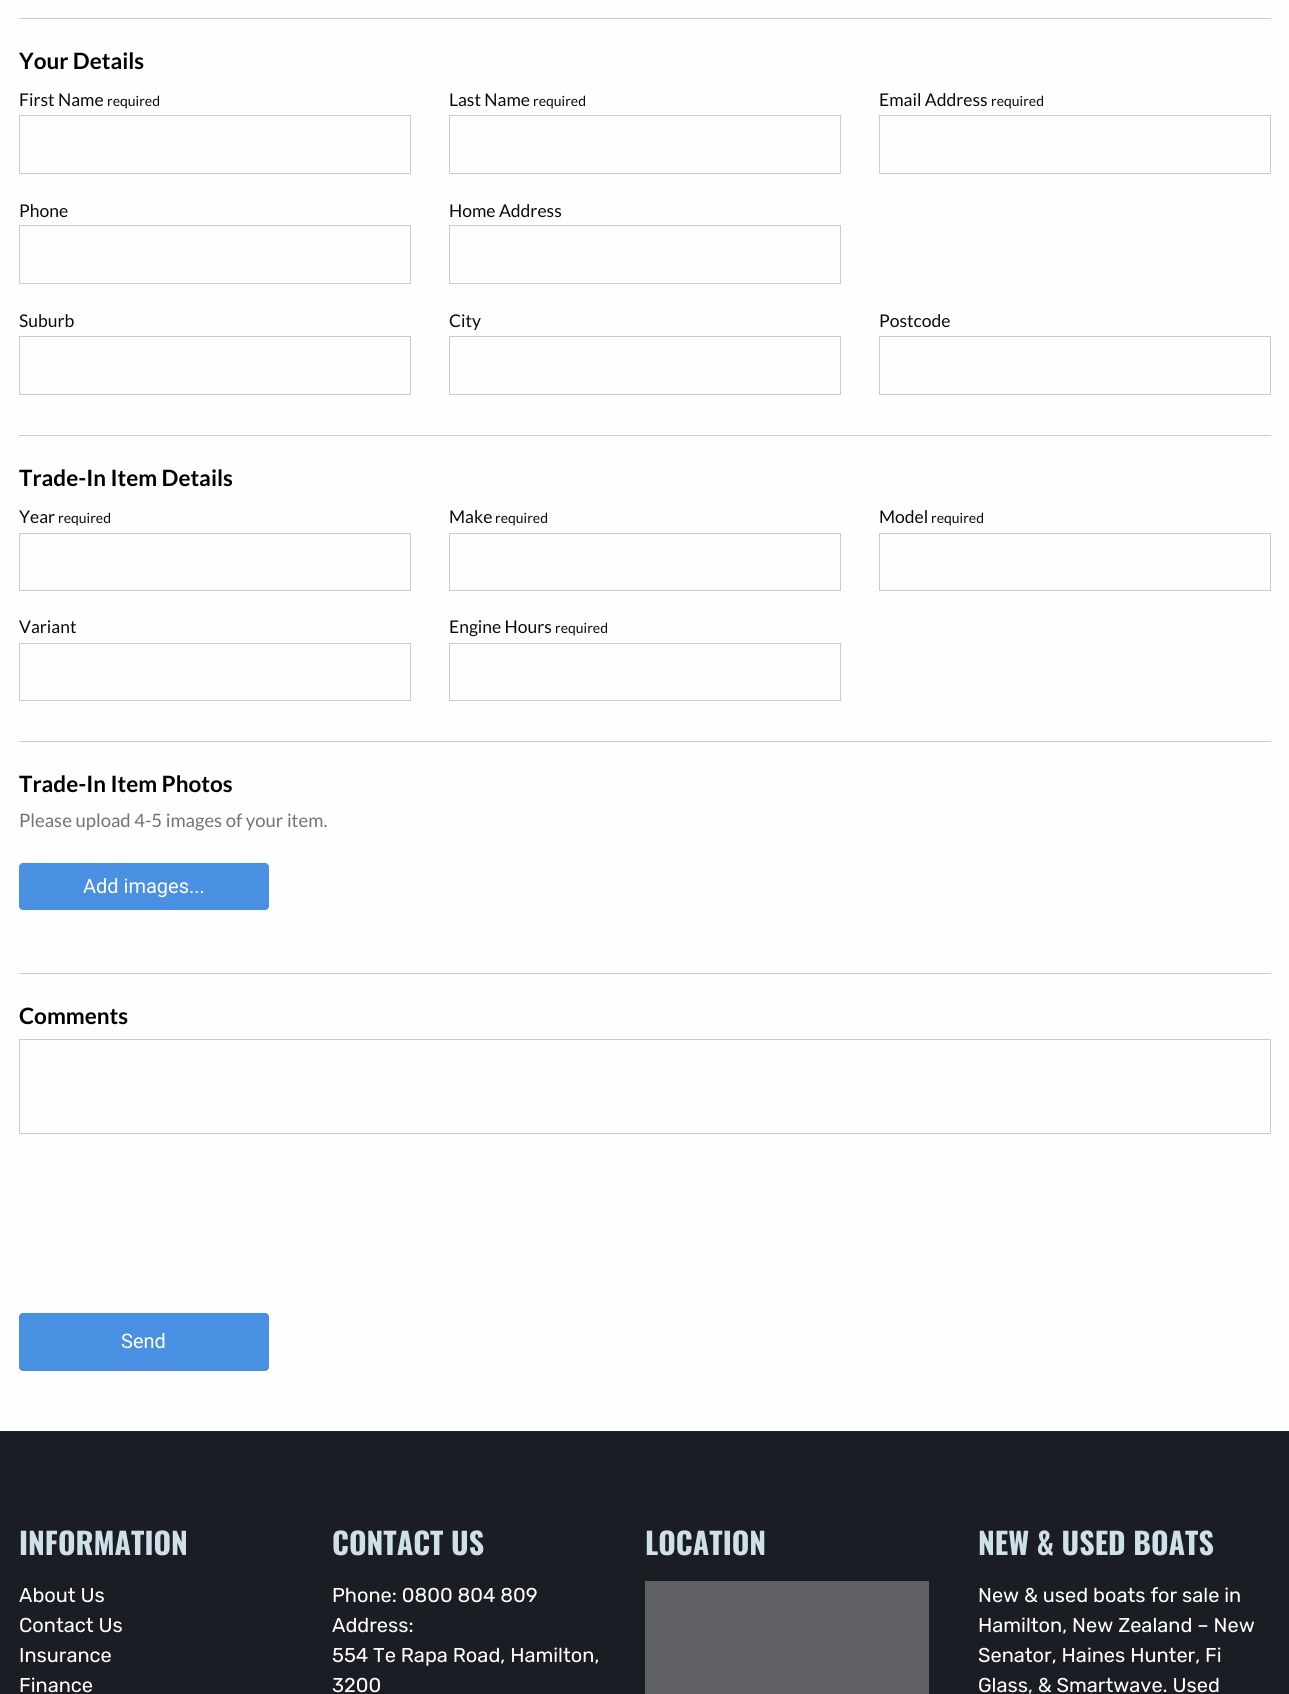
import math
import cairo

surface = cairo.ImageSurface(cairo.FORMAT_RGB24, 1289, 1694)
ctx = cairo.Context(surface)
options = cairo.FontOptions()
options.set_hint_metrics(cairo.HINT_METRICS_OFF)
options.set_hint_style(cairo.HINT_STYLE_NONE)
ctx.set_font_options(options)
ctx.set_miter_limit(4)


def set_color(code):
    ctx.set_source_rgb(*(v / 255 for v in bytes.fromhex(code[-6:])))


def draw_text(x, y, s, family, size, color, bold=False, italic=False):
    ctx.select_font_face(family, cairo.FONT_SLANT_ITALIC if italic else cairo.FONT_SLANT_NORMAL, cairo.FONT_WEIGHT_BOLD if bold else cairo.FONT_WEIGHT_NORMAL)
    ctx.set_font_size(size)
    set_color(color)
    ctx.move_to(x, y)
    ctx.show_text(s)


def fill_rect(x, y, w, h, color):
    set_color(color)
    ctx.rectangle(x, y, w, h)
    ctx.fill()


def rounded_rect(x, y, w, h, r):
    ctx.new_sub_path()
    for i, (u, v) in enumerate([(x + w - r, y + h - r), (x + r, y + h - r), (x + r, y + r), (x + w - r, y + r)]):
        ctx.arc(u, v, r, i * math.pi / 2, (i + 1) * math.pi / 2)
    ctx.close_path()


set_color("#fefefe")
ctx.paint()
fill_rect(19, 18, 1252, 1, "#cccccc")
draw_text(19, 69, "Your Details", "Lato", 22.5, "#000000", bold=True)
draw_text(19, 106, "First Name", "Lato", 17.5, "#0a0a0a")
draw_text(107, 106, "required", "Lato", 14, "#0a0a0a")
ctx.rectangle(19.5, 115.5, 391, 58)
set_color("#cccccc")
ctx.set_line_width(1)
ctx.stroke()
draw_text(449, 106, "Last Name", "Lato", 17.5, "#0a0a0a")
draw_text(533, 106, "required", "Lato", 14, "#0a0a0a")
ctx.rectangle(449.5, 115.5, 391, 58)
set_color("#cccccc")
ctx.stroke()
draw_text(879, 106, "Email Address", "Lato", 17.5, "#0a0a0a")
draw_text(991, 106, "required", "Lato", 14, "#0a0a0a")
ctx.rectangle(879.5, 115.5, 391, 58)
set_color("#cccccc")
ctx.stroke()
draw_text(19, 217, "Phone", "Lato", 17.5, "#0a0a0a")
ctx.rectangle(19.5, 225.5, 391, 58)
set_color("#cccccc")
ctx.stroke()
draw_text(449, 217, "Home Address", "Lato", 17.5, "#0a0a0a")
ctx.rectangle(449.5, 225.5, 391, 58)
set_color("#cccccc")
ctx.stroke()
draw_text(19, 327, "Suburb", "Lato", 17.5, "#0a0a0a")
ctx.rectangle(19.5, 336.5, 391, 58)
set_color("#cccccc")
ctx.stroke()
draw_text(449, 327, "City", "Lato", 17.5, "#0a0a0a")
ctx.rectangle(449.5, 336.5, 391, 58)
set_color("#cccccc")
ctx.stroke()
draw_text(879, 327, "Postcode", "Lato", 17.5, "#0a0a0a")
ctx.rectangle(879.5, 336.5, 391, 58)
set_color("#cccccc")
ctx.stroke()
fill_rect(19, 435, 1252, 1, "#cccccc")
draw_text(19, 486, "Trade-In Item Details", "Lato", 22.5, "#000000", bold=True)
draw_text(19, 523, "Year", "Lato", 17.5, "#0a0a0a")
draw_text(58, 523, "required", "Lato", 14, "#0a0a0a")
ctx.rectangle(19.5, 533.5, 391, 57)
set_color("#cccccc")
ctx.stroke()
draw_text(449, 523, "Make", "Lato", 17.5, "#0a0a0a")
draw_text(495, 523, "required", "Lato", 14, "#0a0a0a")
ctx.rectangle(449.5, 533.5, 391, 57)
set_color("#cccccc")
ctx.stroke()
draw_text(879, 523, "Model", "Lato", 17.5, "#0a0a0a")
draw_text(931, 523, "required", "Lato", 14, "#0a0a0a")
ctx.rectangle(879.5, 533.5, 391, 57)
set_color("#cccccc")
ctx.stroke()
draw_text(19, 633, "Variant", "Lato", 17.5, "#0a0a0a")
ctx.rectangle(19.5, 643.5, 391, 57)
set_color("#cccccc")
ctx.stroke()
draw_text(449, 633, "Engine Hours", "Lato", 17.5, "#0a0a0a")
draw_text(555, 633, "required", "Lato", 14, "#0a0a0a")
ctx.rectangle(449.5, 643.5, 391, 57)
set_color("#cccccc")
ctx.stroke()
fill_rect(19, 741, 1252, 1, "#cccccc")
draw_text(19, 792, "Trade-In Item Photos", "Lato", 22.5, "#000000", bold=True)
draw_text(19, 827, "Please upload 4-5 images of your item.", "Lato", 18.5, "#737373")
set_color("#4a90e2")
rounded_rect(19.5, 863.5, 249, 46, 3.5)
ctx.fill_preserve()
ctx.stroke()
draw_text(83, 893, "Add images...", "Roboto", 20, "#ffffff")
fill_rect(19, 973, 1252, 1, "#cccccc")
draw_text(19, 1024, "Comments", "Lato", 22.5, "#000000", bold=True)
ctx.rectangle(19.5, 1039.5, 1251, 94)
set_color("#cccccc")
ctx.stroke()
set_color("#4a90e2")
rounded_rect(19.5, 1313.5, 249, 57, 3.5)
ctx.fill_preserve()
ctx.stroke()
draw_text(121, 1348, "Send", "Roboto", 20, "#ffffff")
fill_rect(0, 1431, 1289, 263, "#1a1d23")
draw_text(19, 1555, "INFORMATION", "Oswald", 30, "#cfe1e7", bold=True)
draw_text(19, 1602, "About Us", "Rubik", 20, "#ffffff")
draw_text(19, 1632, "Contact Us", "Rubik", 20, "#ffffff")
draw_text(19, 1662, "Insurance", "Rubik", 20, "#ffffff")
draw_text(19, 1692, "Finance", "Rubik", 20, "#ffffff")
draw_text(332, 1555, "CONTACT US", "Oswald", 30, "#cfe1e7", bold=True)
draw_text(332, 1602, "Phone: 0800 804 809", "Rubik", 20, "#ffffff")
draw_text(332, 1632, "Address:", "Rubik", 20, "#ffffff")
draw_text(332, 1662, "554 Te Rapa Road, Hamilton,", "Rubik", 20, "#ffffff")
draw_text(332, 1692, "3200", "Rubik", 20, "#ffffff")
draw_text(645, 1555, "LOCATION", "Oswald", 30, "#cfe1e7", bold=True)
fill_rect(645, 1581, 284, 113, "#5f6165")
draw_text(978, 1555, "NEW & USED BOATS", "Oswald", 30, "#cfe1e7", bold=True)
draw_text(978, 1602, "New & used boats for sale in", "Rubik", 20, "#ffffff")
draw_text(978, 1632, "Hamilton, New Zealand – New", "Rubik", 20, "#ffffff")
draw_text(978, 1662, "Senator, Haines Hunter, Fi", "Rubik", 20, "#ffffff")
draw_text(978, 1692, "Glass, & Smartwave. Used", "Rubik", 20, "#ffffff")
surface.write_to_png("output.png")
